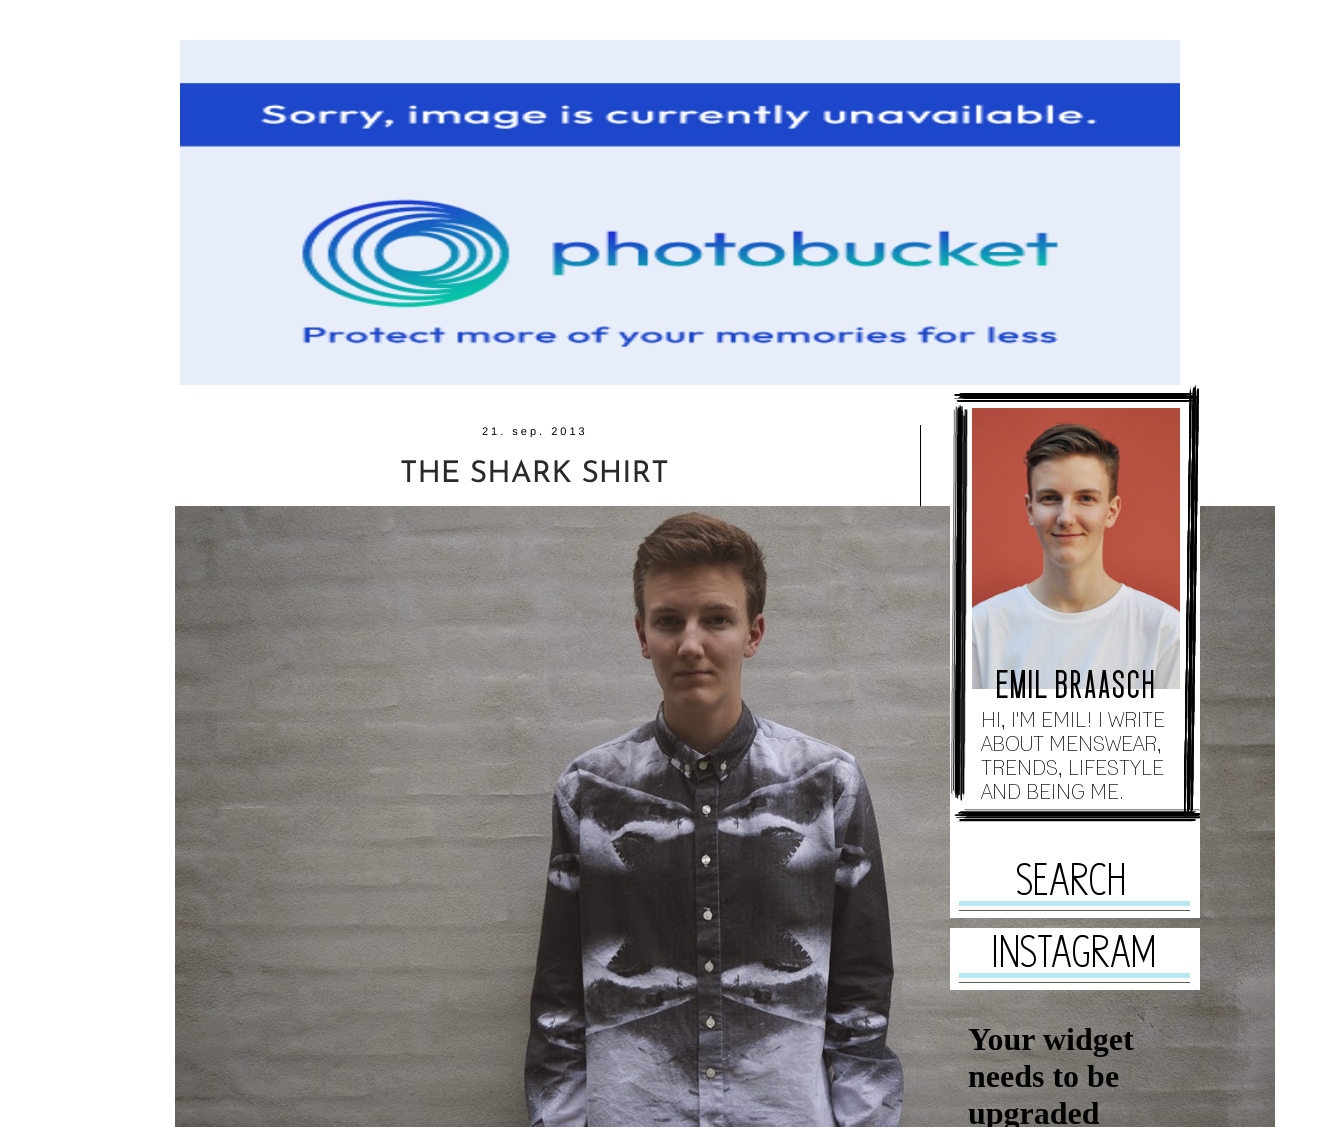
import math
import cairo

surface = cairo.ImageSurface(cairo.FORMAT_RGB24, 1319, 1127)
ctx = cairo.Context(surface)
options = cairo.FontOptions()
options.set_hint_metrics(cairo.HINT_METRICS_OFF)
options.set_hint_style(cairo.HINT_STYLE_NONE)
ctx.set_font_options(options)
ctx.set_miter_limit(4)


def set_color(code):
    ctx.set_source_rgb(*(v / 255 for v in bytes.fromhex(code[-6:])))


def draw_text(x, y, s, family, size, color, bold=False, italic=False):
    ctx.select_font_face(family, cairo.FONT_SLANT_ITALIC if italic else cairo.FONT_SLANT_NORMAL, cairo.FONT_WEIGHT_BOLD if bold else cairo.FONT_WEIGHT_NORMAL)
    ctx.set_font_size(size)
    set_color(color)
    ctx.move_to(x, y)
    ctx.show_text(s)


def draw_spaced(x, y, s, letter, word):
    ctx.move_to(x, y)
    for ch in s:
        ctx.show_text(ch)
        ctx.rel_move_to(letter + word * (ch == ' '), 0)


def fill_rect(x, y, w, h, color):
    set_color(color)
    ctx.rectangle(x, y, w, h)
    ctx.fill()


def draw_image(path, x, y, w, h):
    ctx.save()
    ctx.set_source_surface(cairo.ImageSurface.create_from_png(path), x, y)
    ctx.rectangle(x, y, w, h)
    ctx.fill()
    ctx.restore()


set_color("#ffffff")
ctx.paint()
draw_image("assets/img1.png", 180, 40, 1000, 345)
ctx.select_font_face("Liberation Sans")
ctx.set_font_size(11)
set_color("#000000")
draw_spaced(482, 435, "21. sep. 2013", 3, 0)
draw_text(400, 482, "THE SHARK SHIRT", "Josefin Sans Thin", 30, "#2a2a2a")
draw_image("assets/img2.png", 175, 506, 1100, 621)
draw_image("assets/img3.png", 950, 385, 250, 478)
draw_image("assets/img4.png", 950, 863, 250, 55)
draw_image("assets/img5.png", 950, 928, 250, 62)
draw_image("assets/img6.png", 968, 1028, 166, 99)
fill_rect(920, 425, 1, 81, "#000000")
surface.write_to_png("output.png")
